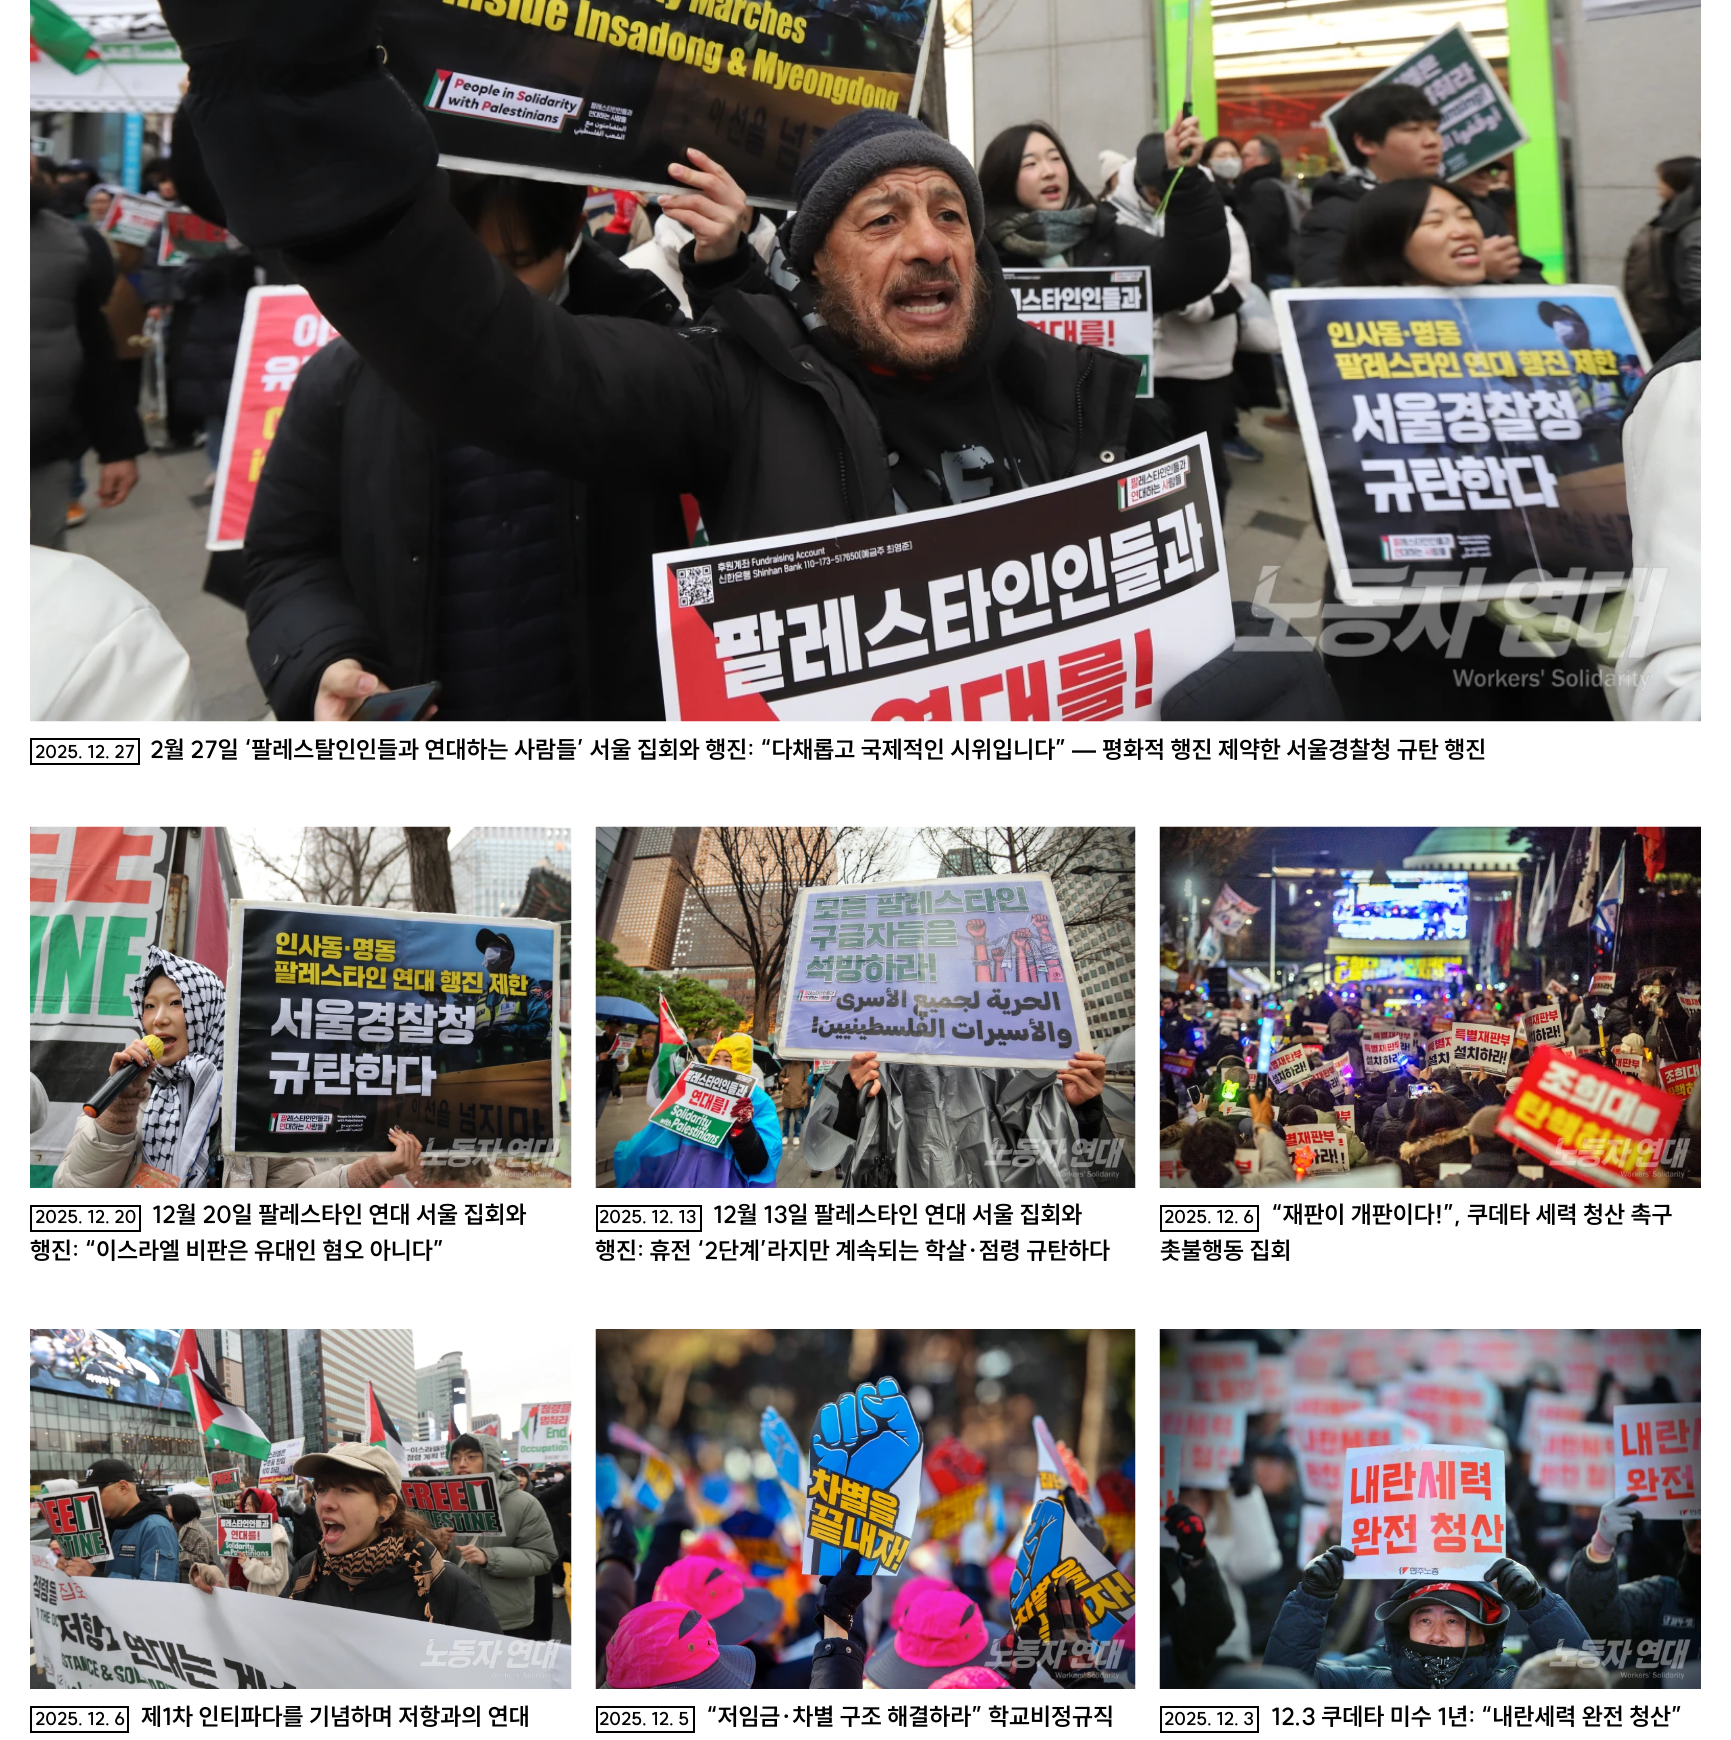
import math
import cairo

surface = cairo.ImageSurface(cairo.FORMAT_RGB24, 1731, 1740)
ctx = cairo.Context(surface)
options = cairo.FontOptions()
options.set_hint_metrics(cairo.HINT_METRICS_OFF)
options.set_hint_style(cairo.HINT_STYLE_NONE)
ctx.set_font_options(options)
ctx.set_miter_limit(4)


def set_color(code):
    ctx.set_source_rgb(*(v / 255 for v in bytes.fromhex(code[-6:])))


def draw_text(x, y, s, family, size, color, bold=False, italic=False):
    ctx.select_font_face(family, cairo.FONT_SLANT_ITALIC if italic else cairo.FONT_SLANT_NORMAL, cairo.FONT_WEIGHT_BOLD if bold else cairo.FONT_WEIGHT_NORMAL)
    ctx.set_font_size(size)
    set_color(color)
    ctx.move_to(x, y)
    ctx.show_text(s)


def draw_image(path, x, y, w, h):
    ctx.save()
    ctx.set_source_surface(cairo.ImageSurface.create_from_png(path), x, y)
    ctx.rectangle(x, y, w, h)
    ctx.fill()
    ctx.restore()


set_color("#ffffff")
ctx.paint()
draw_image("assets/img1.png", 30, 0, 1671, 722)
ctx.rectangle(31, 739, 108, 25)
set_color("#000000")
ctx.stroke()
draw_text(35, 758, "2025. 12. 27", "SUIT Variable", 18, "#000000", bold=True)
draw_text(150, 758, "2월 27일 ‘팔레스탈인인들과 연대하는 사람들’ 서울 집회와 행진: “다채롭고 국제적인 시위입니다”", "SUIT Variable", 24, "#000000", bold=True)
draw_text(1072, 758, "—", "Liberation Sans", 24, "#000000", bold=True)
draw_text(1102, 758, "평화적 행진 제약한 서울경찰청 규탄 행진", "SUIT Variable", 24, "#000000", bold=True)
draw_image("assets/img2.png", 30, 826, 542, 362)
ctx.rectangle(31, 1206, 109, 25)
ctx.stroke()
draw_text(35, 1223, "2025. 12. 20", "SUIT Variable", 18, "#000000", bold=True)
draw_text(152, 1223, "12월 20일 팔레스타인 연대 서울 집회와", "SUIT Variable", 24, "#000000", bold=True)
draw_text(30, 1259, "행진: “이스라엘 비판은 유대인 혐오 아니다”", "SUIT Variable", 24, "#000000", bold=True)
draw_image("assets/img3.png", 595, 826, 541, 362)
ctx.rectangle(597, 1206, 104, 25)
ctx.stroke()
draw_text(599, 1223, "2025. 12. 13", "SUIT Variable", 18, "#000000", bold=True)
draw_text(713, 1223, "12월 13일 팔레스타인 연대 서울 집회와", "SUIT Variable", 24, "#000000", bold=True)
draw_text(595, 1259, "행진: 휴전 ‘2단계’라지만 계속되는 학살·점령 규탄하다", "SUIT Variable", 24, "#000000", bold=True)
draw_image("assets/img4.png", 1159, 826, 542, 362)
ctx.rectangle(1161, 1206, 97, 25)
ctx.stroke()
draw_text(1164, 1223, "2025. 12. 6", "SUIT Variable", 18, "#000000", bold=True)
draw_text(1271, 1223, "“재판이 개판이다!”, 쿠데타 세력 청산 촉구", "SUIT Variable", 24, "#000000", bold=True)
draw_text(1160, 1259, "촛불행동 집회", "SUIT Variable", 24, "#000000", bold=True)
draw_image("assets/img5.png", 30, 1329, 542, 360)
ctx.rectangle(31, 1707, 97, 25)
ctx.stroke()
draw_text(35, 1725, "2025. 12. 6", "SUIT Variable", 18, "#000000", bold=True)
draw_text(141, 1725, "제1차 인티파다를 기념하며 저항과의 연대", "SUIT Variable", 24, "#000000", bold=True)
draw_image("assets/img6.png", 595, 1329, 541, 360)
ctx.rectangle(597, 1707, 97, 25)
ctx.stroke()
draw_text(599, 1725, "2025. 12. 5", "SUIT Variable", 18, "#000000", bold=True)
draw_text(706, 1725, "“저임금·차별 구조 해결하라” 학교비정규직", "SUIT Variable", 24, "#000000", bold=True)
draw_image("assets/img7.png", 1159, 1329, 542, 360)
ctx.rectangle(1161, 1707, 97, 25)
ctx.stroke()
draw_text(1164, 1725, "2025. 12. 3", "SUIT Variable", 18, "#000000", bold=True)
draw_text(1271, 1725, "12.3 쿠데타 미수 1년: “내란세력 완전 청산”", "SUIT Variable", 24, "#000000", bold=True)
surface.write_to_png("output.png")
